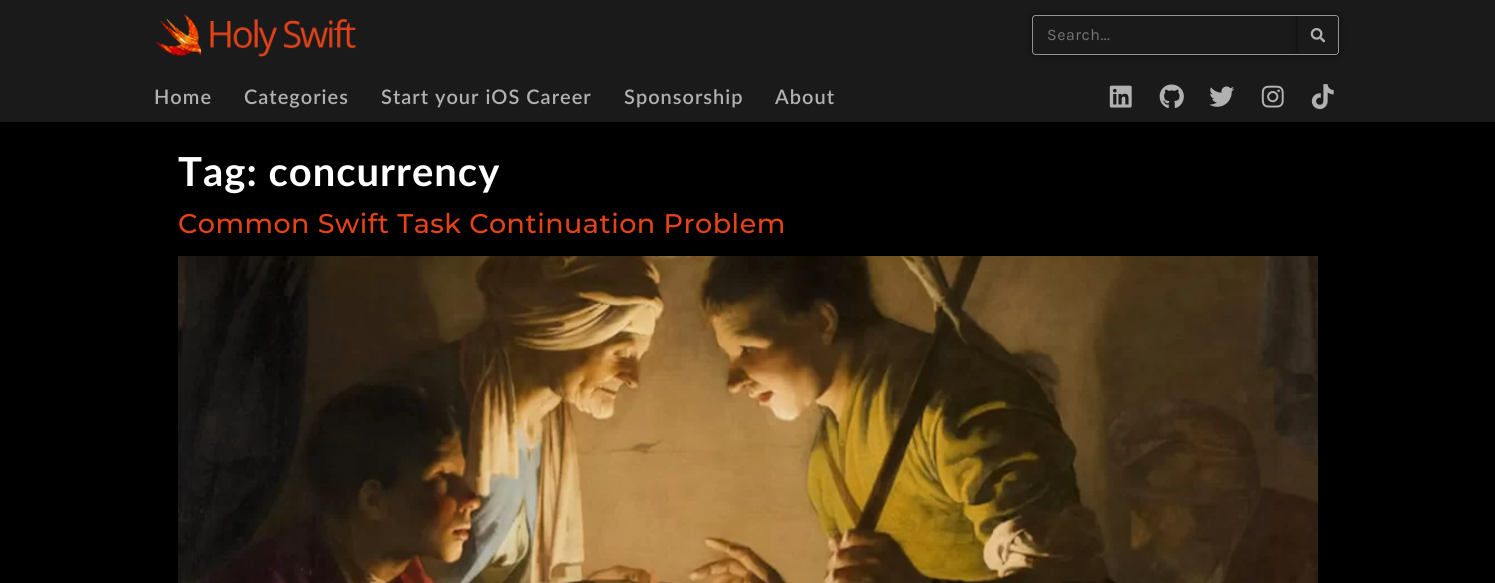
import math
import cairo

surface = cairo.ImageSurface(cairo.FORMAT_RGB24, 1495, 583)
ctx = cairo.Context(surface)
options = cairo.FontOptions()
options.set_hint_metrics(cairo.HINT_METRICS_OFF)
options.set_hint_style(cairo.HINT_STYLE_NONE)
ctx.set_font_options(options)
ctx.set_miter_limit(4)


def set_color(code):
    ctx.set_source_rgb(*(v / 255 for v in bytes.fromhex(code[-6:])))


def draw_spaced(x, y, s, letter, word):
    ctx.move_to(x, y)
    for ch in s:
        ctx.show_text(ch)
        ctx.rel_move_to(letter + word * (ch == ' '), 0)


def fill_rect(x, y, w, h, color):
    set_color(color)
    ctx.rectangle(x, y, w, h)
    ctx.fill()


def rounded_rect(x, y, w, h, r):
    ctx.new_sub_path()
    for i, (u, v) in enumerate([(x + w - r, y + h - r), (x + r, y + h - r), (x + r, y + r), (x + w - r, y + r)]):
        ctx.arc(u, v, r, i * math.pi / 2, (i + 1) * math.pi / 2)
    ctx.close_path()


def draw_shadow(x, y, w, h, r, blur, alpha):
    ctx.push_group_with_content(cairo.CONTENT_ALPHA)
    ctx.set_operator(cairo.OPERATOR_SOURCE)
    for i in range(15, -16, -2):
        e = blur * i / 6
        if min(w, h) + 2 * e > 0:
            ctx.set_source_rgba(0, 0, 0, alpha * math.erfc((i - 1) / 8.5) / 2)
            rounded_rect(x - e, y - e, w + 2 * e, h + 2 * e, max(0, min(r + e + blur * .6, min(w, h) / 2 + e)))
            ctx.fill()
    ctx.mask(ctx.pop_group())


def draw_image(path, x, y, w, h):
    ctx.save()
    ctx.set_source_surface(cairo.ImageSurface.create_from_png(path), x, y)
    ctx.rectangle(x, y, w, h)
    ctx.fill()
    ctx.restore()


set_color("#000000")
ctx.paint()
fill_rect(0, 0, 1495, 122, "#1a1a1a")
draw_image("assets/img1.png", 156, 14, 200, 43)
set_color("#000000")
draw_shadow(1032, 15, 307, 40, 4, 4, 0.5)
set_color("#1a1a1a")
rounded_rect(1032.4, 15.4, 306.2, 39.2, 3.6)
ctx.fill_preserve()
set_color("#b1b1b1")
ctx.set_line_width(0.8)
ctx.stroke()
ctx.select_font_face("Karla")
ctx.set_font_size(16)
set_color("#757575")
draw_spaced(1047, 40, "Search...", 0.5, 0)
ctx.save()
rounded_rect(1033, 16, 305, 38, 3)
ctx.clip()
set_color("#000000")
draw_shadow(1298, 16, 40, 38, 0, 4, 0.5)
ctx.restore()
set_color("#1a1a1a")
ctx.new_path()
ctx.move_to(1298, 16)
ctx.line_to(1335, 16)
ctx.curve_to(1336.5, 16, 1338, 17.5, 1338, 19)
ctx.line_to(1338, 51)
ctx.curve_to(1338, 52.5, 1336.5, 54, 1335, 54)
ctx.line_to(1298, 54)
ctx.close_path()
ctx.fill()
draw_image("assets/img2.png", 1310, 28, 16, 15)
ctx.select_font_face("Lato SemiBold")
ctx.set_font_size(20)
set_color("#b1b1b1")
draw_spaced(154, 104, "Home", 1, 0)
draw_spaced(244, 104, "Categories", 1, 0)
draw_spaced(381, 104, "Start your iOS Career", 1, 0)
draw_spaced(624, 104, "Sponsorship", 1, 0)
draw_spaced(775, 104, "About", 1, 0)
draw_image("assets/img3.png", 1109, 85, 23, 23)
draw_image("assets/img4.png", 1159, 84, 25, 25)
draw_image("assets/img5.png", 1209, 86, 25, 21)
draw_image("assets/img6.png", 1261, 85, 23, 23)
draw_image("assets/img7.png", 1311, 84, 23, 26)
ctx.select_font_face("Lato", cairo.FONT_SLANT_NORMAL, cairo.FONT_WEIGHT_BOLD)
ctx.set_font_size(40)
set_color("#ffffff")
draw_spaced(178, 186, "Tag: concurrency", 1, 0)
ctx.select_font_face("Montserrat Medium")
ctx.set_font_size(27)
set_color("#e44217")
draw_spaced(178, 233, "Common Swift Task Continuation Problem", 0.5, 0)
draw_image("assets/img8.png", 178, 256, 1140, 327)
surface.write_to_png("output.png")
